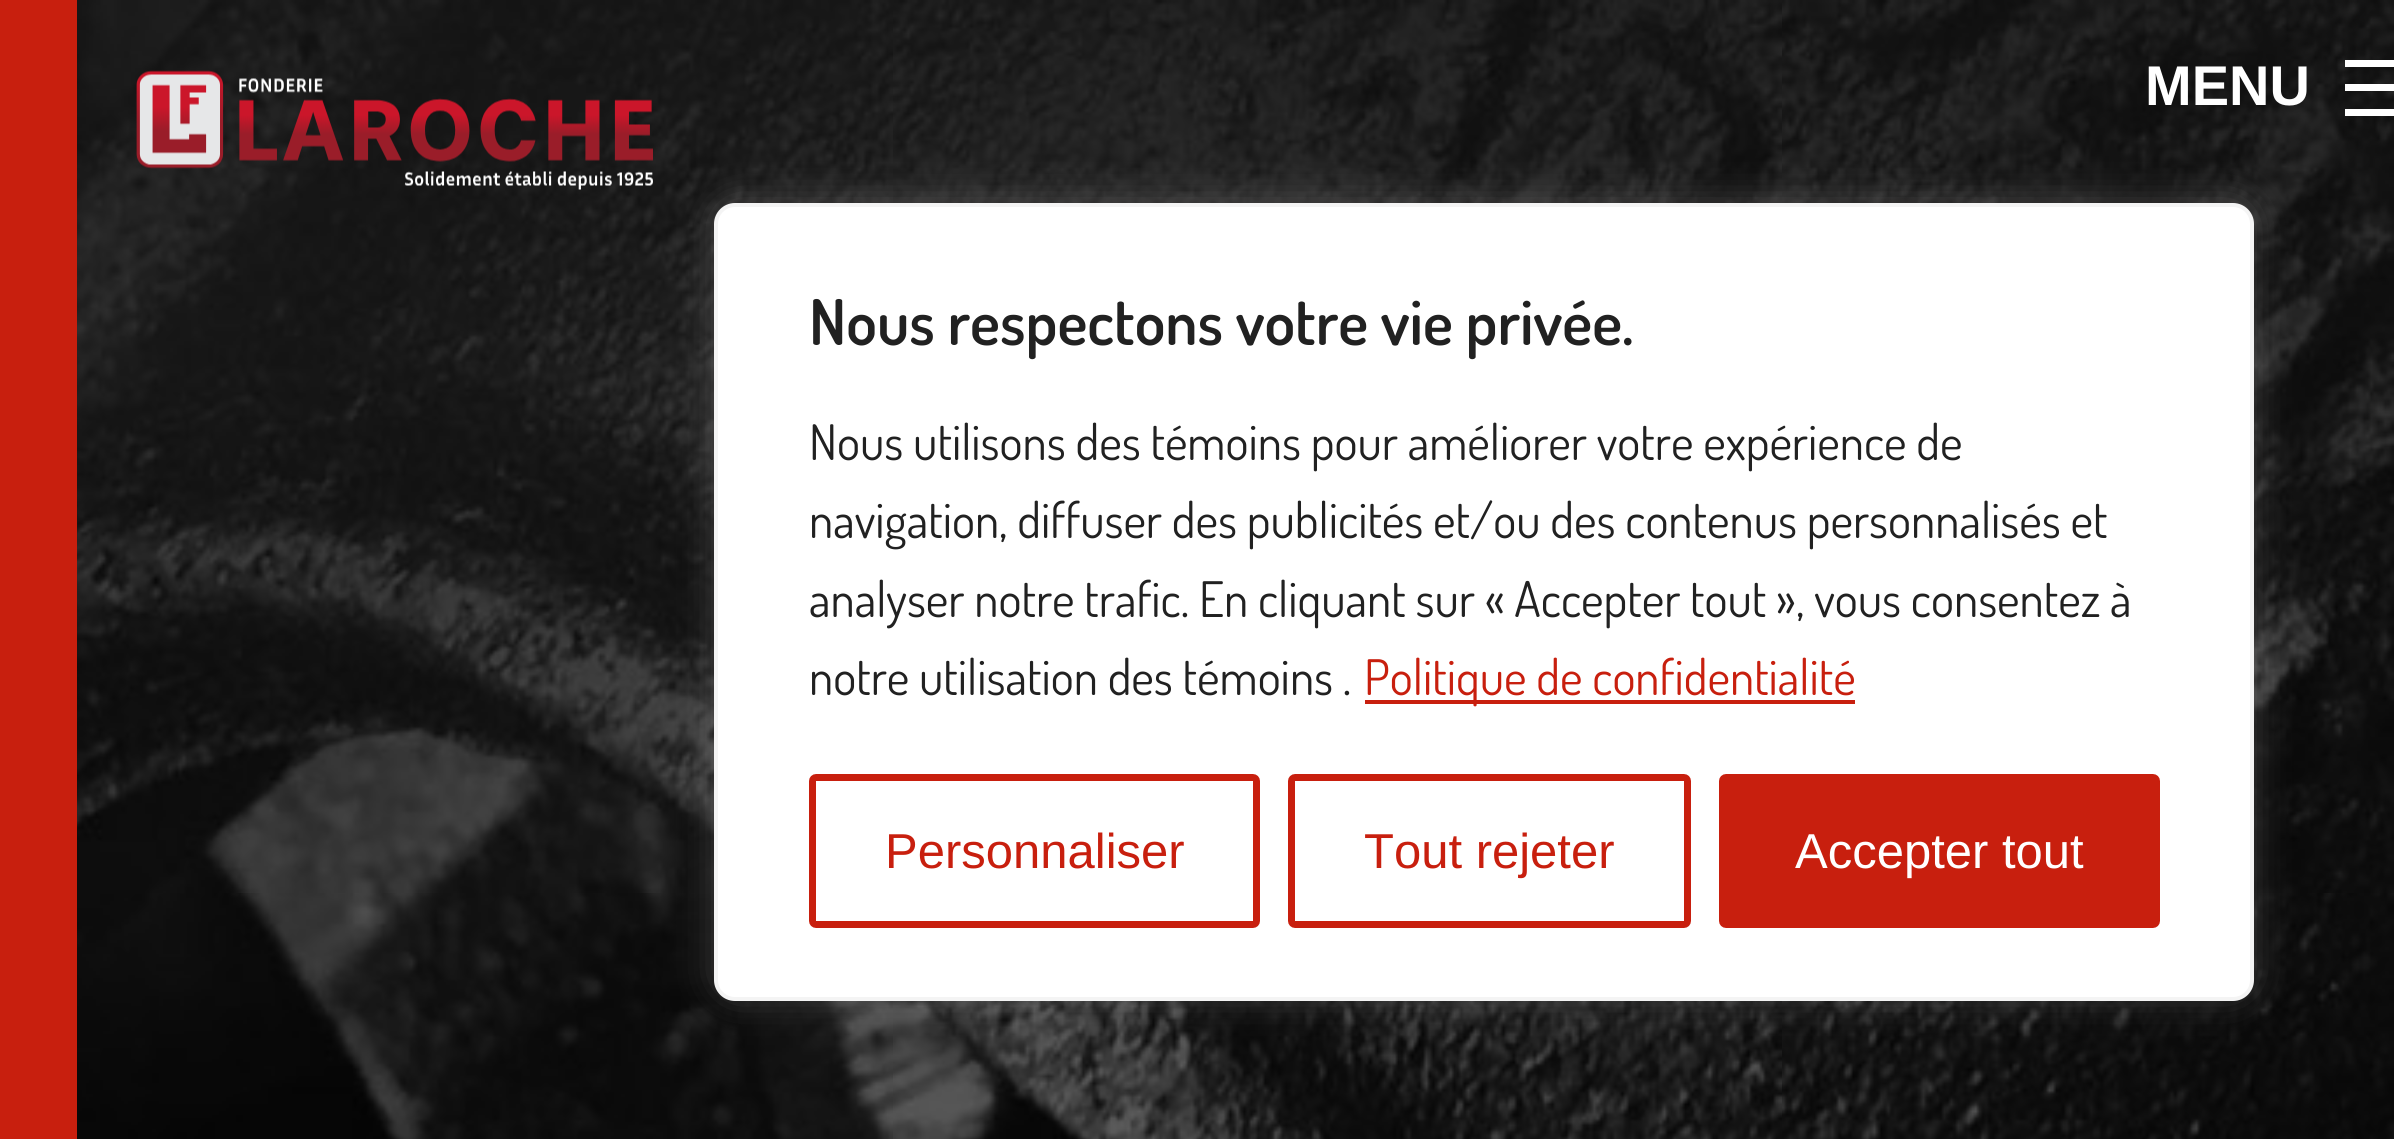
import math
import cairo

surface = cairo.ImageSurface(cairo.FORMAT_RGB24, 2394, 1139)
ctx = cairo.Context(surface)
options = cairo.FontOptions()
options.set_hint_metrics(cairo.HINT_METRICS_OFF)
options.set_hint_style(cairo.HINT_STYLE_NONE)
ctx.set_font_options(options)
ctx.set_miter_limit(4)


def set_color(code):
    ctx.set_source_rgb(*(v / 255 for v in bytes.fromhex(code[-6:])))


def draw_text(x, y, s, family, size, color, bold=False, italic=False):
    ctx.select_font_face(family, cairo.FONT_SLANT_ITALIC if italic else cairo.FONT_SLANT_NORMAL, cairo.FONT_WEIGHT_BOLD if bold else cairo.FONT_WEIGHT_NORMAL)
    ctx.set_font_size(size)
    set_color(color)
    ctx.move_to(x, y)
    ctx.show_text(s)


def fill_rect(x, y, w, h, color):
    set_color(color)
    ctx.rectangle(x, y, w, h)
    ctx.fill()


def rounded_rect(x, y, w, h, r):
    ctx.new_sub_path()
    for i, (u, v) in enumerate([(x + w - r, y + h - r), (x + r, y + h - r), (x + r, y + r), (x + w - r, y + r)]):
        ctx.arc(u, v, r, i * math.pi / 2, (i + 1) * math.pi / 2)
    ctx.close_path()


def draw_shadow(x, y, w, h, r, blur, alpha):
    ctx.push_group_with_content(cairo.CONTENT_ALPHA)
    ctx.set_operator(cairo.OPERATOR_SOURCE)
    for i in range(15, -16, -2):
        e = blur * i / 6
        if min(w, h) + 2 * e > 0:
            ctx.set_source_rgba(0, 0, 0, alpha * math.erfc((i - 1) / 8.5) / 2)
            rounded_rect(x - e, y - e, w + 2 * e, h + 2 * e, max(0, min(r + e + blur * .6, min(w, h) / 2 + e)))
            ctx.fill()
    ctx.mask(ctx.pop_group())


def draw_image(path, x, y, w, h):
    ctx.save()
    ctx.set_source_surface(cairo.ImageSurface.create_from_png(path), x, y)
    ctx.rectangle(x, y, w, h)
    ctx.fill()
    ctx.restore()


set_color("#ffffff")
ctx.paint()
draw_image("assets/img1.png", 77, 0, 2317, 1139)
fill_rect(0, 0, 77, 1139, "#c81f0e")
draw_image("assets/img2.png", 136, 70, 517, 120)
draw_text(2145, 105, "MENU", "Liberation Sans", 56, "#ffffff", bold=True)
fill_rect(2345, 84, 49, 7, "#ffffff")
fill_rect(2345, 60, 49, 7, "#ffffff")
fill_rect(2345, 109, 49, 7, "#ffffff")
set_color("#acabab")
draw_shadow(714, 200, 1540, 798, 21, 17.5, 0.3)
set_color("#ffffff")
rounded_rect(716, 205, 1536, 794, 19)
ctx.fill_preserve()
set_color("#f4f4f4")
ctx.set_line_width(4)
ctx.stroke()
draw_text(809, 345, "Nous respectons votre vie privée.", "Dosis SemiBold", 63, "#212121")
draw_text(809, 460, "Nous utilisons des témoins pour améliorer votre expérience de", "Dosis", 49, "#212121")
draw_text(809, 538, "navigation, diffuser des publicités et/ou des contenus personnalisés et", "Dosis", 49, "#212121")
draw_text(809, 617, "analyser notre trafic. En cliquant sur « Accepter tout », vous consentez à", "Dosis", 49, "#212121")
draw_text(809, 695, "notre utilisation des témoins .", "Dosis", 49, "#212121")
fill_rect(1365, 700, 490, 4, "#c81f0e")
draw_text(1364, 695, "Politique de confidentialité", "Dosis", 49, "#c81f0e")
rounded_rect(812.5, 777.5, 444, 147, 3.5)
ctx.set_line_width(7)
ctx.stroke()
draw_text(885, 868, "Personnaliser", "Liberation Sans", 49, "#c81f0e")
rounded_rect(1291.5, 777.5, 396, 147, 3.5)
ctx.stroke()
draw_text(1364, 868, "Tout rejeter", "Liberation Sans", 49, "#c81f0e")
rounded_rect(1722.5, 777.5, 434, 147, 3.5)
ctx.fill_preserve()
ctx.stroke()
draw_text(1795, 868, "Accepter tout", "Liberation Sans", 49, "#ffffff")
surface.write_to_png("output.png")
